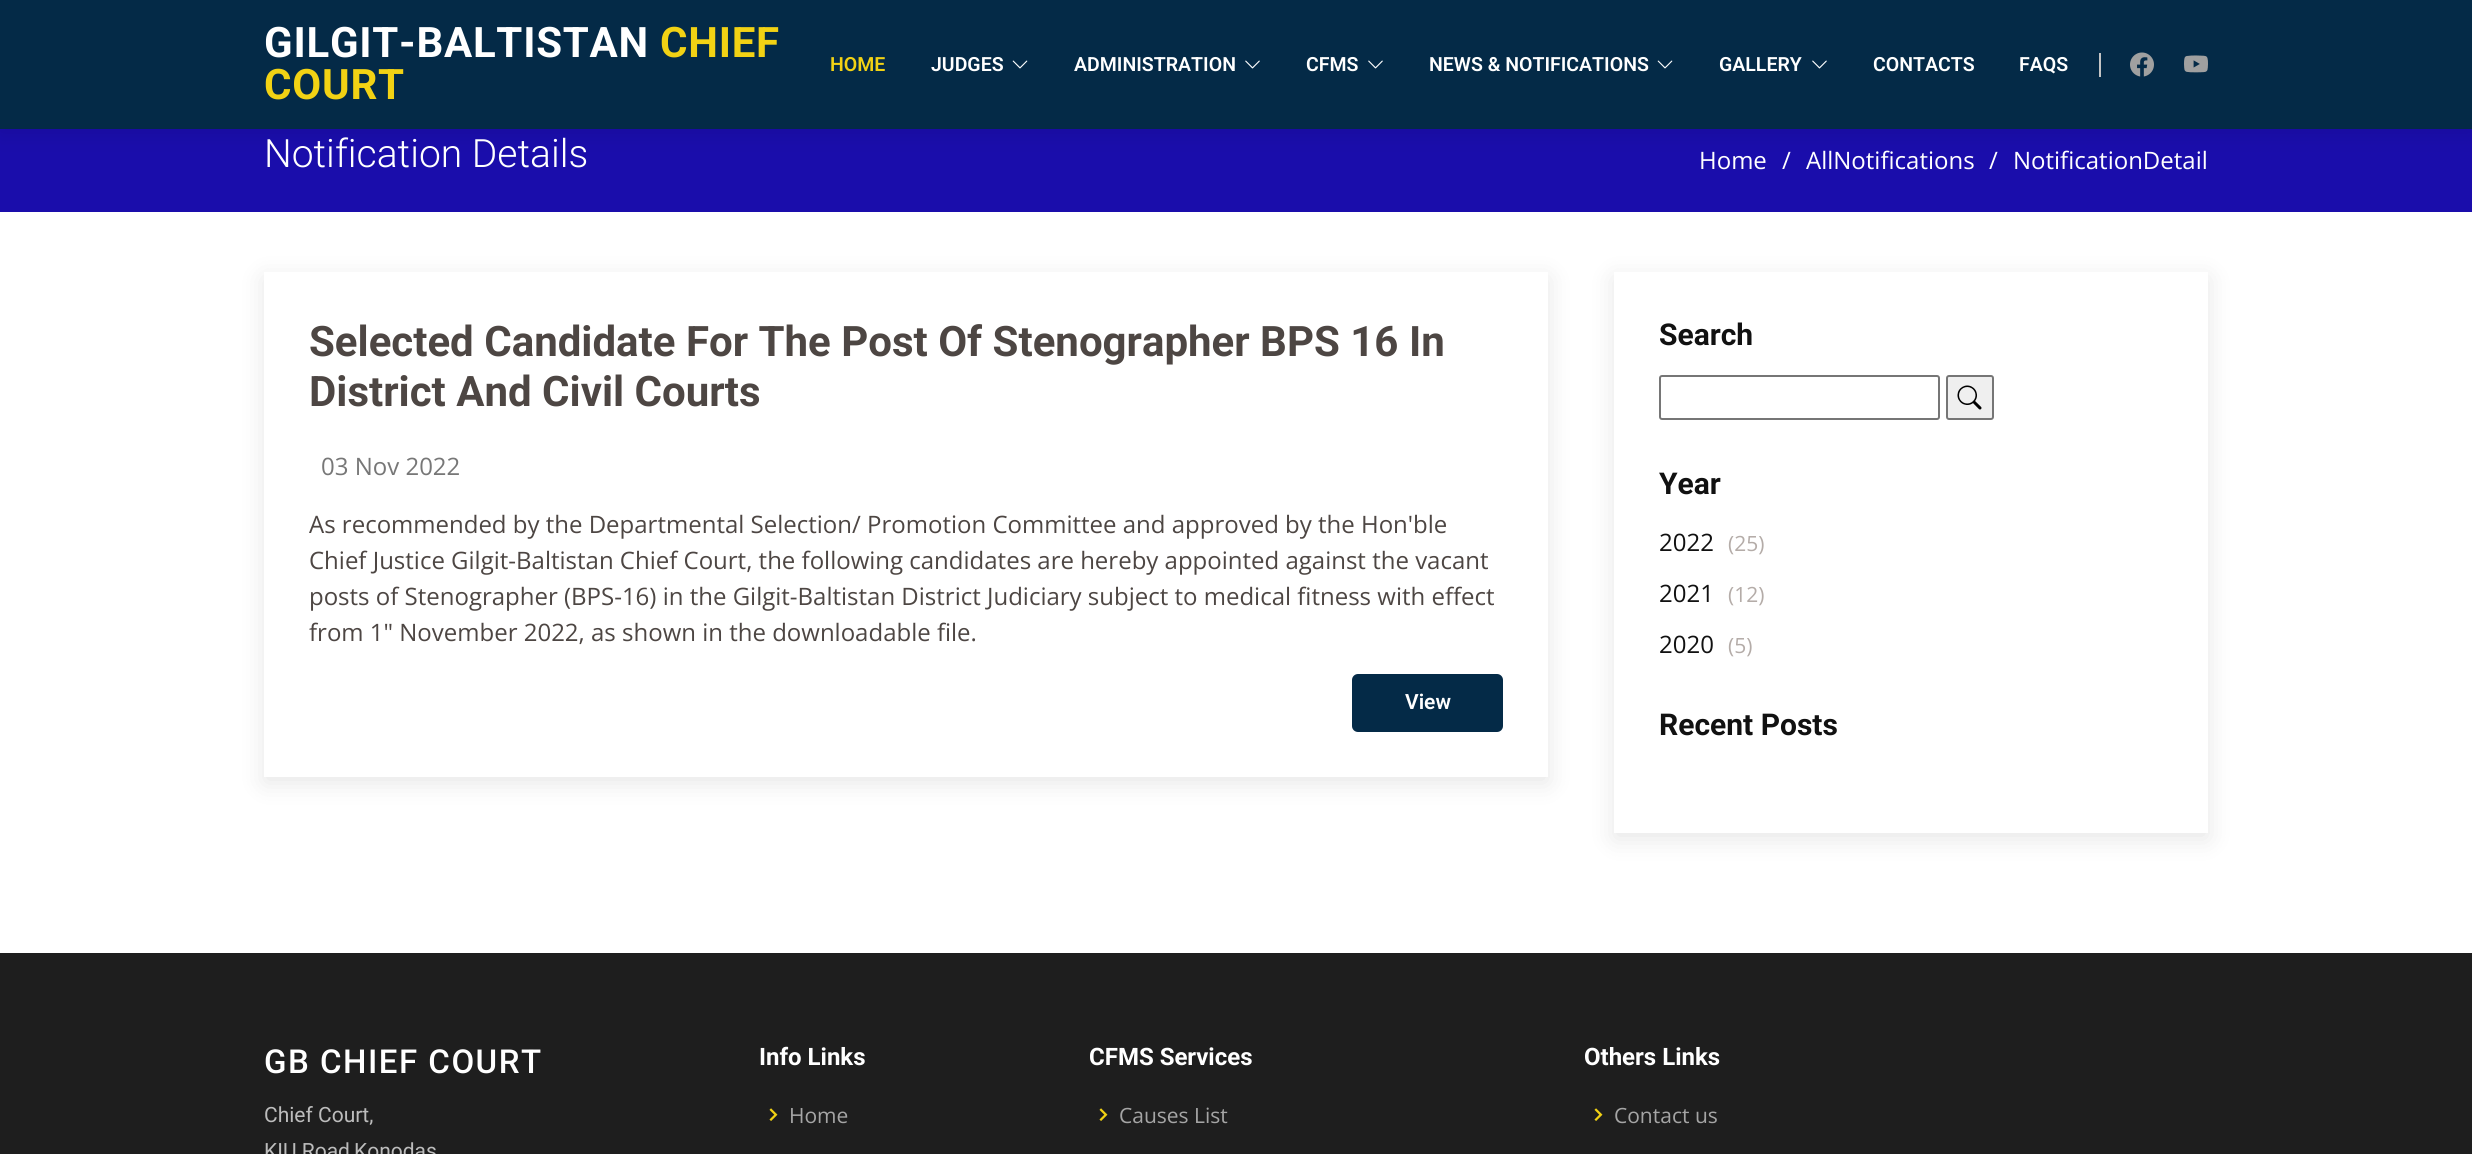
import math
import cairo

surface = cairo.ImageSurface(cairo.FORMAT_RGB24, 2472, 1154)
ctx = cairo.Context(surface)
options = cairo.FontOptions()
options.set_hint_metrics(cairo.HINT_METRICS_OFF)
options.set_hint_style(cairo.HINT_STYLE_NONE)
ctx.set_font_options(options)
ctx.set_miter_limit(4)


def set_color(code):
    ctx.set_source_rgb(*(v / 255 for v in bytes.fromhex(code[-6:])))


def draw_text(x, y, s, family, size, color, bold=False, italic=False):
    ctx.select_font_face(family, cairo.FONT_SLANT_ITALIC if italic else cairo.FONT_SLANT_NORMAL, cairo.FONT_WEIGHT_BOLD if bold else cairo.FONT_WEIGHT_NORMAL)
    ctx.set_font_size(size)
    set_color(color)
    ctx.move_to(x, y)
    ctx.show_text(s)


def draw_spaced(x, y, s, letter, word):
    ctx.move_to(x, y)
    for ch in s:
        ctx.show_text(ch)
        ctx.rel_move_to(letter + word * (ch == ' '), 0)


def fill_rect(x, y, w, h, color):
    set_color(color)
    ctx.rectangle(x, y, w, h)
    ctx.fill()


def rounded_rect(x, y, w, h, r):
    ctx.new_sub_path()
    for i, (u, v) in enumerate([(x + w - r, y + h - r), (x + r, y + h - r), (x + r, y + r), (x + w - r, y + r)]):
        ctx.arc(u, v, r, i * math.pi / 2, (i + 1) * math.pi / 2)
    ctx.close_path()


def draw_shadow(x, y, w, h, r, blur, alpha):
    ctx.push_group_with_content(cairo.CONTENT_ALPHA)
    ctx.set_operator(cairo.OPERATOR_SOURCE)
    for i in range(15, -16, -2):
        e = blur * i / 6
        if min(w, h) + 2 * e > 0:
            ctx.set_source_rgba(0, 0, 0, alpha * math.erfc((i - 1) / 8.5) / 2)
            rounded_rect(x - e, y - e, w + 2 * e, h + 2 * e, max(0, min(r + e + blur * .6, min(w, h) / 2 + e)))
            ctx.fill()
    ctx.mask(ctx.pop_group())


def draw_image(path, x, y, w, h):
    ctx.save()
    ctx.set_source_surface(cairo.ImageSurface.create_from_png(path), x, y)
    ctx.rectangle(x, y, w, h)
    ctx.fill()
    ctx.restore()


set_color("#ffffff")
ctx.paint()
fill_rect(0, 129, 2472, 83, "#1a0dab")
set_color("#000000")
draw_shadow(0, 3, 2472, 129, 0, 11, 0.1)
fill_rect(0, 0, 2472, 129, "#042a47")
ctx.select_font_face("Roboto", cairo.FONT_SLANT_NORMAL, cairo.FONT_WEIGHT_BOLD)
ctx.set_font_size(42)
set_color("#ffffff")
draw_spaced(264, 57, "GILGIT-BALTISTAN", 0.75, 0)
set_color("#f2d214")
draw_spaced(660, 57, "CHIEF", 0.75, 0)
draw_spaced(264, 99, "COURT", 0.75, 0)
draw_text(830, 71, "HOME", "Roboto SemiBold", 19.5, "#f2d214")
draw_text(931, 71, "JUDGES", "Roboto SemiBold", 19.5, "#ffffff")
draw_image("assets/img1.png", 1012, 60, 16, 9)
draw_text(1074, 71, "ADMINISTRATION", "Roboto SemiBold", 19.5, "#ffffff")
draw_image("assets/img2.png", 1245, 60, 15, 9)
draw_text(1306, 71, "CFMS", "Roboto SemiBold", 19.5, "#ffffff")
draw_image("assets/img2.png", 1368, 60, 15, 9)
draw_text(1429, 71, "NEWS & NOTIFICATIONS", "Roboto SemiBold", 19.5, "#ffffff")
draw_image("assets/img1.png", 1657, 60, 16, 9)
draw_text(1719, 71, "GALLERY", "Roboto SemiBold", 19.5, "#ffffff")
draw_image("assets/img2.png", 1812, 60, 15, 9)
draw_text(1873, 71, "CONTACTS", "Roboto SemiBold", 19.5, "#ffffff")
draw_text(2019, 71, "FAQS", "Roboto SemiBold", 19.5, "#ffffff")
fill_rect(2099, 53, 2, 24, "#c4c4c4")
draw_image("assets/img3.png", 2130, 52, 24, 25)
draw_image("assets/img4.png", 2184, 55, 24, 18)
draw_text(264, 167, "Notification Details", "Roboto Light", 39, "#ffffff")
draw_text(1699, 169, "Home", "Open Sans", 24, "#ffffff")
draw_text(1782, 169, "/", "Open Sans", 24, "#ffffff")
draw_text(1806, 169, "AllNotifications", "Open Sans", 24, "#ffffff")
draw_text(1989, 169, "/", "Open Sans", 24, "#ffffff")
draw_text(2013, 169, "NotificationDetail", "Open Sans", 24, "#ffffff")
ctx.save()
ctx.set_fill_rule(cairo.FILL_RULE_EVEN_ODD)
ctx.new_path()
ctx.move_to(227, 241)
ctx.line_to(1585, 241)
ctx.line_to(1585, 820)
ctx.line_to(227, 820)
ctx.close_path()
ctx.move_to(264, 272)
ctx.line_to(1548, 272)
ctx.line_to(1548, 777)
ctx.line_to(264, 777)
ctx.close_path()
ctx.clip()
set_color("#000000")
draw_shadow(264, 278, 1284, 505, 0, 12, 0.1)
ctx.restore()
draw_text(309, 356, "Selected Candidate For The Post Of Stenographer BPS 16 In", "Roboto", 42, "#4d4643", bold=True)
draw_text(309, 406, "District And Civil Courts", "Roboto", 42, "#4d4643", bold=True)
draw_text(321, 475, "03 Nov 2022", "Open Sans", 24, "#777777")
draw_text(309, 533, "As recommended by the Departmental Selection/ Promotion Committee and approved by the Hon'ble", "Open Sans", 24, "#4d4643")
draw_text(309, 569, "Chief Justice Gilgit-Baltistan Chief Court, the following candidates are hereby appointed against the vacant", "Open Sans", 24, "#4d4643")
draw_text(309, 605, "posts of Stenographer (BPS-16) in the Gilgit-Baltistan District Judiciary subject to medical fitness with effect", "Open Sans", 24, "#4d4643")
draw_text(309, 641, "from 1\" November 2022, as shown in the downloadable file.", "Open Sans", 24, "#4d4643")
set_color("#042a47")
rounded_rect(1352, 674, 151, 58, 6)
ctx.fill()
draw_text(1405, 709, "View", "Roboto SemiBold", 21, "#ffffff")
ctx.save()
ctx.set_fill_rule(cairo.FILL_RULE_EVEN_ODD)
ctx.new_path()
ctx.move_to(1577, 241)
ctx.line_to(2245, 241)
ctx.line_to(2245, 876)
ctx.line_to(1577, 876)
ctx.close_path()
ctx.move_to(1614, 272)
ctx.line_to(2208, 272)
ctx.line_to(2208, 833)
ctx.line_to(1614, 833)
ctx.close_path()
ctx.clip()
set_color("#000000")
draw_shadow(1614, 278, 594, 561, 0, 12, 0.1)
ctx.restore()
draw_text(1659, 345, "Search", "Roboto", 30, "#111111", bold=True)
rounded_rect(1660, 376, 279, 43, 2)
set_color("#767676")
ctx.stroke()
set_color("#efefef")
rounded_rect(1947, 376, 46, 43, 2)
ctx.fill_preserve()
set_color("#767676")
ctx.stroke()
draw_image("assets/img5.png", 1957, 385, 25, 25)
draw_text(1659, 494, "Year", "Roboto", 30, "#111111", bold=True)
draw_text(1659, 551, "2022", "Open Sans", 24, "#111111")
draw_text(1728, 551, "(25)", "Open Sans", 21, "#b4aca8")
draw_text(1659, 602, "2021", "Open Sans", 24, "#111111")
draw_text(1728, 602, "(12)", "Open Sans", 21, "#b4aca8")
draw_text(1659, 653, "2020", "Open Sans", 24, "#111111")
draw_text(1728, 653, "(5)", "Open Sans", 21, "#b4aca8")
draw_text(1659, 735, "Recent Posts", "Roboto", 30, "#111111", bold=True)
fill_rect(0, 953, 2472, 201, "#1e1e1e")
ctx.select_font_face("Roboto Medium")
ctx.set_font_size(33)
set_color("#ffffff")
draw_spaced(264, 1073, "GB CHIEF COURT", 1.5, 0)
draw_text(264, 1122, "Chief Court,", "Roboto", 21, "#bcbcbc")
draw_text(264, 1158, "KIU Road,Konodas", "Roboto", 21, "#bcbcbc")
draw_text(759, 1065, "Info Links", "Roboto", 24, "#ffffff", bold=True)
draw_image("assets/img6.png", 769, 1108, 9, 13)
draw_text(789, 1123, "Home", "Open Sans", 21, "#a5a5a5")
draw_text(1089, 1065, "CFMS Services", "Roboto", 24, "#ffffff", bold=True)
draw_image("assets/img6.png", 1099, 1108, 9, 13)
draw_text(1119, 1123, "Causes List", "Open Sans", 21, "#a5a5a5")
draw_text(1584, 1065, "Others Links", "Roboto", 24, "#ffffff", bold=True)
draw_image("assets/img6.png", 1594, 1108, 9, 13)
draw_text(1614, 1123, "Contact us", "Open Sans", 21, "#a5a5a5")
surface.write_to_png("output.png")
